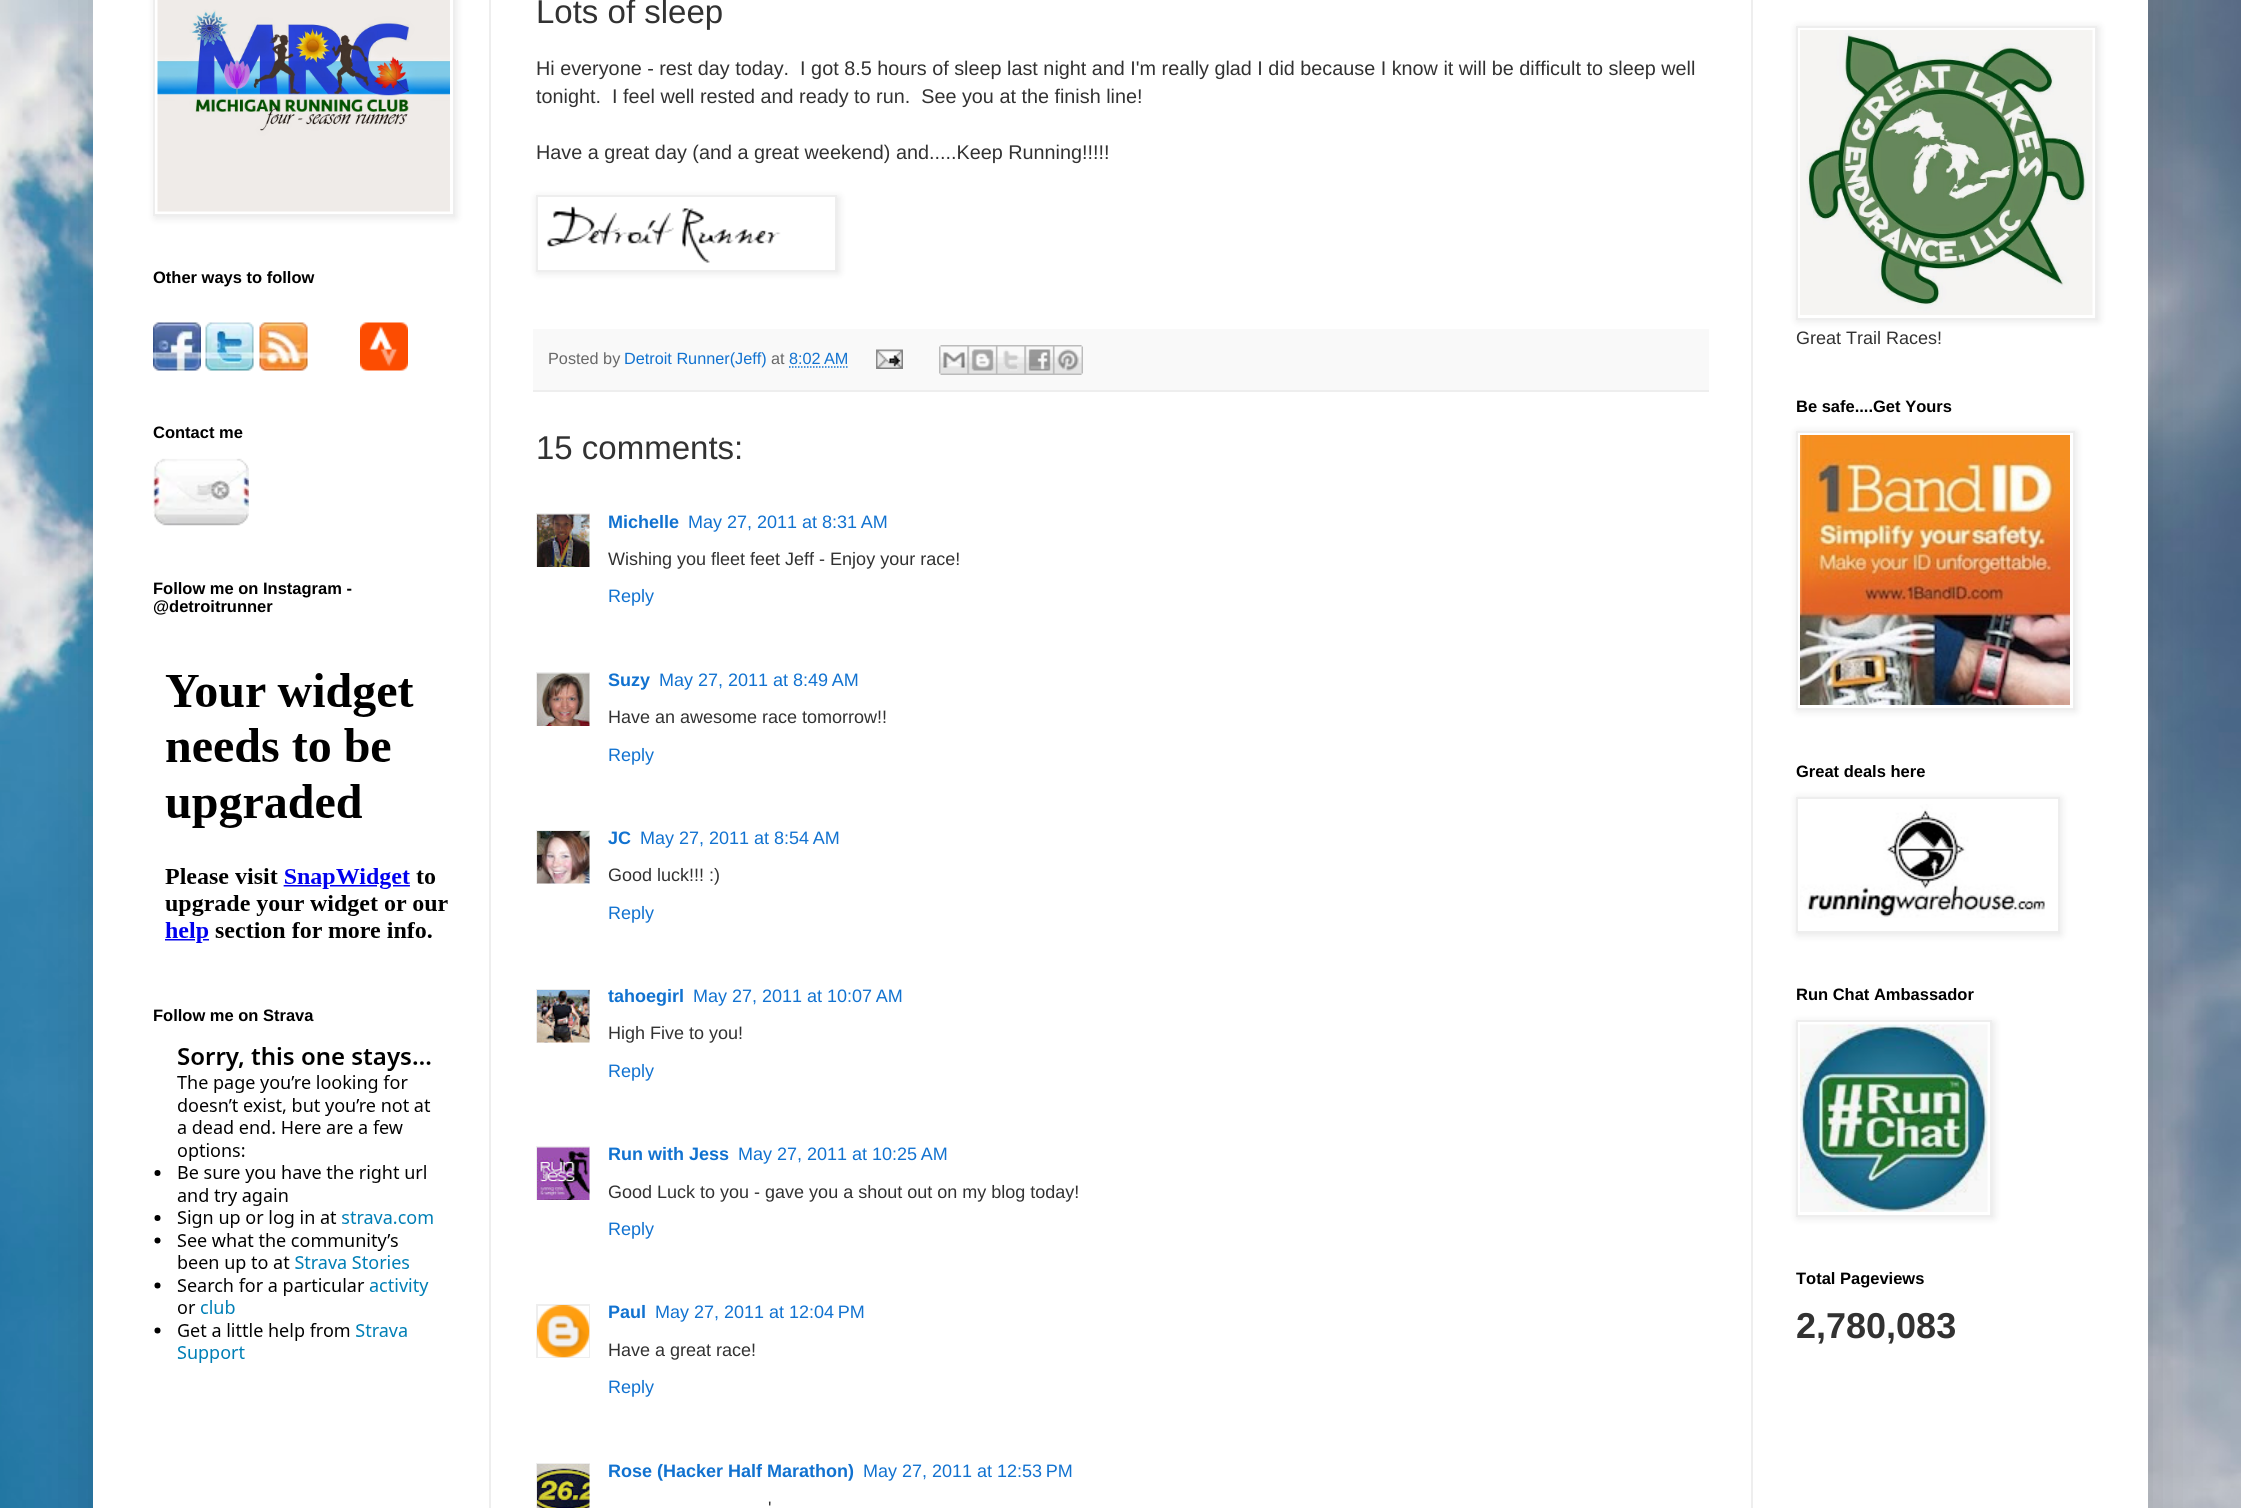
import math
import cairo

surface = cairo.ImageSurface(cairo.FORMAT_RGB24, 2241, 1508)
ctx = cairo.Context(surface)
options = cairo.FontOptions()
options.set_hint_metrics(cairo.HINT_METRICS_OFF)
options.set_hint_style(cairo.HINT_STYLE_NONE)
ctx.set_font_options(options)
ctx.set_miter_limit(4)


def set_color(code):
    ctx.set_source_rgb(*(v / 255 for v in bytes.fromhex(code[-6:])))


def draw_text(x, y, s, family, size, color, bold=False, italic=False):
    ctx.select_font_face(family, cairo.FONT_SLANT_ITALIC if italic else cairo.FONT_SLANT_NORMAL, cairo.FONT_WEIGHT_BOLD if bold else cairo.FONT_WEIGHT_NORMAL)
    ctx.set_font_size(size)
    set_color(color)
    ctx.move_to(x, y)
    ctx.show_text(s)


def fill_rect(x, y, w, h, color):
    set_color(color)
    ctx.rectangle(x, y, w, h)
    ctx.fill()


def rounded_rect(x, y, w, h, r):
    ctx.new_sub_path()
    for i, (u, v) in enumerate([(x + w - r, y + h - r), (x + r, y + h - r), (x + r, y + r), (x + w - r, y + r)]):
        ctx.arc(u, v, r, i * math.pi / 2, (i + 1) * math.pi / 2)
    ctx.close_path()


def draw_shadow(x, y, w, h, r, blur, alpha):
    ctx.push_group_with_content(cairo.CONTENT_ALPHA)
    ctx.set_operator(cairo.OPERATOR_SOURCE)
    for i in range(15, -16, -2):
        e = blur * i / 6
        if min(w, h) + 2 * e > 0:
            ctx.set_source_rgba(0, 0, 0, alpha * math.erfc((i - 1) / 8.5) / 2)
            rounded_rect(x - e, y - e, w + 2 * e, h + 2 * e, max(0, min(r + e + blur * .6, min(w, h) / 2 + e)))
            ctx.fill()
    ctx.mask(ctx.pop_group())


def draw_image(path, x, y, w, h):
    ctx.save()
    ctx.set_source_surface(cairo.ImageSurface.create_from_png(path), x, y)
    ctx.rectangle(x, y, w, h)
    ctx.fill()
    ctx.restore()


set_color("#ffffff")
ctx.paint()
draw_image("assets/img1.png", 0, 0, 2241, 1508)
set_color("#000000")
draw_shadow(93, -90, 2055, 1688, 0, 30, 0.15)
fill_rect(93, 0, 2055, 1508, "#ffffff")
set_color("#000000")
draw_shadow(155, -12, 301, 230, 0, 4, 0.1)
set_color("#ffffff")
ctx.rectangle(154, -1, 300, 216)
ctx.fill_preserve()
set_color("#eeeeee")
ctx.stroke()
draw_image("assets/img2.png", 157, 0, 293, 212)
draw_text(153, 283, "Other ways to follow", "Liberation Sans", 16.5, "#000000", bold=True)
draw_image("assets/img3.png", 153, 322, 48, 49)
draw_image("assets/img4.png", 205, 322, 49, 49)
draw_image("assets/img5.png", 259, 322, 49, 49)
draw_image("assets/img6.png", 360, 322, 48, 49)
draw_text(153, 438, "Contact me", "Liberation Sans", 16.5, "#000000", bold=True)
draw_image("assets/img7.png", 153, 458, 96, 68)
draw_text(153, 594, "Follow me on Instagram -", "Liberation Sans", 16.5, "#000000", bold=True)
draw_text(153, 612, "@detroitrunner", "Liberation Sans", 16.5, "#000000", bold=True)
draw_image("assets/img8.png", 165, 673, 283, 270)
draw_text(153, 1021, "Follow me on Strava", "Liberation Sans", 16.5, "#000000", bold=True)
draw_image("assets/img9.png", 154, 1047, 279, 316)
draw_text(536, 23, "Lots of sleep", "Liberation Sans", 33, "#323232")
draw_text(536, 75, "Hi everyone - rest day today.  I got 8.5 hours of sleep last night and I'm really glad I did because I know it will be difficult to sleep well", "Liberation Sans", 19.8, "#323232")
draw_text(536, 103, "tonight.  I feel well rested and ready to run.  See you at the finish line!", "Liberation Sans", 19.8, "#323232")
draw_text(536, 159, "Have a great day (and a great weekend) and.....Keep Running!!!!!", "Liberation Sans", 19.8, "#323232")
set_color("#000000")
draw_shadow(537, 197, 302, 76, 0, 4, 0.1)
set_color("#ffffff")
ctx.rectangle(537, 196, 299, 75)
ctx.fill_preserve()
set_color("#eeeeee")
ctx.stroke()
draw_image("assets/img10.png", 547, 206, 234, 57)
fill_rect(533, 329, 1176, 61, "#f9f9f9")
fill_rect(533, 390, 1176, 2, "#eeeeee")
draw_text(548, 364, "Posted by", "Liberation Sans", 16.25, "#686868")
draw_text(624, 364, "Detroit Runner(Jeff)", "Liberation Sans", 16.25, "#1172d0")
draw_text(771, 364, "at", "Liberation Sans", 16.25, "#686868")
draw_text(789, 364, "8:02 AM", "Liberation Sans", 16.25, "#1172d0")
ctx.new_path()
ctx.move_to(789, 367)
ctx.line_to(848, 367)
ctx.set_line_width(1.5)
ctx.set_dash([1.5, 1.5])
ctx.stroke()
draw_image("assets/img11.png", 876, 349, 27, 20)
draw_image("assets/img12.png", 939, 345, 29, 30)
draw_image("assets/img13.png", 967, 345, 29, 30)
draw_image("assets/img14.png", 996, 345, 29, 30)
draw_image("assets/img15.png", 1024, 345, 29, 30)
draw_image("assets/img16.png", 1053, 345, 30, 30)
draw_text(536, 459, "15 comments:", "Liberation Sans", 33, "#323232")
ctx.save()
ctx.rectangle(536, 513, 54, 54)
ctx.clip()
ctx.rectangle(537, 514, 55, 55)
set_color("#eeeeee")
ctx.set_line_width(2)
ctx.set_dash([])
ctx.stroke()
ctx.restore()
draw_image("assets/img17.png", 537, 514, 53, 53)
draw_text(608, 528, "Michelle", "Liberation Sans", 18, "#1172d0", bold=True)
draw_text(688, 528, "May 27, 2011 at 8:31 AM", "Liberation Sans", 18, "#1172d0")
draw_text(608, 565, "Wishing you fleet feet Jeff - Enjoy your race!", "Liberation Sans", 18, "#323232")
draw_text(608, 602, "Reply", "Liberation Sans", 18, "#1172d0")
ctx.save()
ctx.rectangle(536, 672, 54, 54)
ctx.clip()
ctx.rectangle(537, 673, 55, 55)
set_color("#eeeeee")
ctx.set_line_width(2)
ctx.set_dash([])
ctx.stroke()
ctx.restore()
draw_image("assets/img18.png", 537, 673, 53, 53)
draw_text(608, 686, "Suzy", "Liberation Sans", 18, "#1172d0", bold=True)
draw_text(659, 686, "May 27, 2011 at 8:49 AM", "Liberation Sans", 18, "#1172d0")
draw_text(608, 723, "Have an awesome race tomorrow!!", "Liberation Sans", 18, "#323232")
draw_text(608, 761, "Reply", "Liberation Sans", 18, "#1172d0")
ctx.save()
ctx.rectangle(536, 830, 54, 54)
ctx.clip()
ctx.rectangle(537, 831, 55, 55)
set_color("#eeeeee")
ctx.set_line_width(2)
ctx.set_dash([])
ctx.stroke()
ctx.restore()
draw_image("assets/img19.png", 537, 831, 53, 53)
draw_text(608, 844, "JC", "Liberation Sans", 18, "#1172d0", bold=True)
draw_text(640, 844, "May 27, 2011 at 8:54 AM", "Liberation Sans", 18, "#1172d0")
draw_text(608, 881, "Good luck!!! :)", "Liberation Sans", 18, "#323232")
draw_text(608, 919, "Reply", "Liberation Sans", 18, "#1172d0")
ctx.save()
ctx.rectangle(536, 989, 54, 54)
ctx.clip()
ctx.rectangle(537, 990, 55, 55)
set_color("#eeeeee")
ctx.set_line_width(2)
ctx.set_dash([])
ctx.stroke()
ctx.restore()
draw_image("assets/img20.png", 537, 990, 53, 53)
draw_text(608, 1002, "tahoegirl", "Liberation Sans", 18, "#1172d0", bold=True)
draw_text(693, 1002, "May 27, 2011 at 10:07 AM", "Liberation Sans", 18, "#1172d0")
draw_text(608, 1039, "High Five to you!", "Liberation Sans", 18, "#323232")
draw_text(608, 1077, "Reply", "Liberation Sans", 18, "#1172d0")
ctx.save()
ctx.rectangle(536, 1146, 54, 54)
ctx.clip()
ctx.rectangle(537, 1147, 55, 55)
set_color("#eeeeee")
ctx.set_line_width(2)
ctx.set_dash([])
ctx.stroke()
ctx.restore()
draw_image("assets/img21.png", 537, 1147, 53, 53)
draw_text(608, 1160, "Run with Jess", "Liberation Sans", 18, "#1172d0", bold=True)
draw_text(738, 1160, "May 27, 2011 at 10:25 AM", "Liberation Sans", 18, "#1172d0")
draw_text(608, 1198, "Good Luck to you - gave you a shout out on my blog today!", "Liberation Sans", 18, "#323232")
draw_text(608, 1235, "Reply", "Liberation Sans", 18, "#1172d0")
ctx.save()
ctx.rectangle(536, 1304, 54, 54)
ctx.clip()
ctx.rectangle(537, 1305, 53, 53)
set_color("#eeeeee")
ctx.set_line_width(2)
ctx.set_dash([])
ctx.stroke()
ctx.restore()
draw_image("assets/img22.png", 537, 1305, 53, 53)
draw_text(608, 1318, "Paul", "Liberation Sans", 18, "#1172d0", bold=True)
draw_text(655, 1318, "May 27, 2011 at 12:04 PM", "Liberation Sans", 18, "#1172d0")
draw_text(608, 1356, "Have a great race!", "Liberation Sans", 18, "#323232")
draw_text(608, 1393, "Reply", "Liberation Sans", 18, "#1172d0")
ctx.save()
ctx.rectangle(536, 1463, 54, 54)
ctx.clip()
ctx.rectangle(537, 1464, 55, 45)
set_color("#eeeeee")
ctx.set_line_width(2)
ctx.set_dash([])
ctx.stroke()
ctx.restore()
draw_image("assets/img23.png", 537, 1464, 53, 44)
draw_text(608, 1477, "Rose (Hacker Half Marathon)", "Liberation Sans", 18, "#1172d0", bold=True)
draw_text(863, 1477, "May 27, 2011 at 12:53 PM", "Liberation Sans", 18, "#1172d0")
draw_text(768, 1514, "'", "Liberation Sans", 18, "#323232")
set_color("#000000")
draw_shadow(1797, 27, 302, 294, 0, 4, 0.1)
set_color("#ffffff")
ctx.rectangle(1797, 27, 299, 292)
ctx.fill_preserve()
set_color("#eeeeee")
ctx.set_line_width(2)
ctx.set_dash([])
ctx.stroke()
draw_image("assets/img24.png", 1800, 30, 293, 285)
draw_text(1796, 344, "Great Trail Races!", "Liberation Sans", 18, "#323232")
draw_text(1796, 412, "Be safe....Get Yours", "Liberation Sans", 16.5, "#000000", bold=True)
set_color("#000000")
draw_shadow(1797, 432, 279, 279, 0, 4, 0.1)
set_color("#ffffff")
ctx.rectangle(1797, 432, 277, 277)
ctx.fill_preserve()
set_color("#eeeeee")
ctx.stroke()
draw_image("assets/img25.png", 1800, 435, 270, 270)
draw_text(1796, 777, "Great deals here", "Liberation Sans", 16.5, "#000000", bold=True)
set_color("#000000")
draw_shadow(1797, 798, 264, 137, 0, 4, 0.1)
set_color("#ffffff")
ctx.rectangle(1797, 798, 262, 134)
ctx.fill_preserve()
set_color("#eeeeee")
ctx.stroke()
draw_image("assets/img26.png", 1800, 804, 245, 114)
draw_text(1796, 1000, "Run Chat Ambassador", "Liberation Sans", 16.5, "#000000", bold=True)
set_color("#000000")
draw_shadow(1797, 1022, 197, 196, 0, 4, 0.1)
set_color("#ffffff")
ctx.rectangle(1797, 1021, 194, 195)
ctx.fill_preserve()
set_color("#eeeeee")
ctx.stroke()
draw_image("assets/img27.png", 1800, 1024, 188, 188)
draw_text(1796, 1284, "Total Pageviews", "Liberation Sans", 16.5, "#000000", bold=True)
draw_text(1796, 1338, "2,780,083", "Liberation Sans", 36, "#323232", bold=True)
fill_rect(489, 0, 2, 1508, "#eeeeee")
fill_rect(1751, 0, 2, 1508, "#eeeeee")
surface.write_to_png("output.png")
